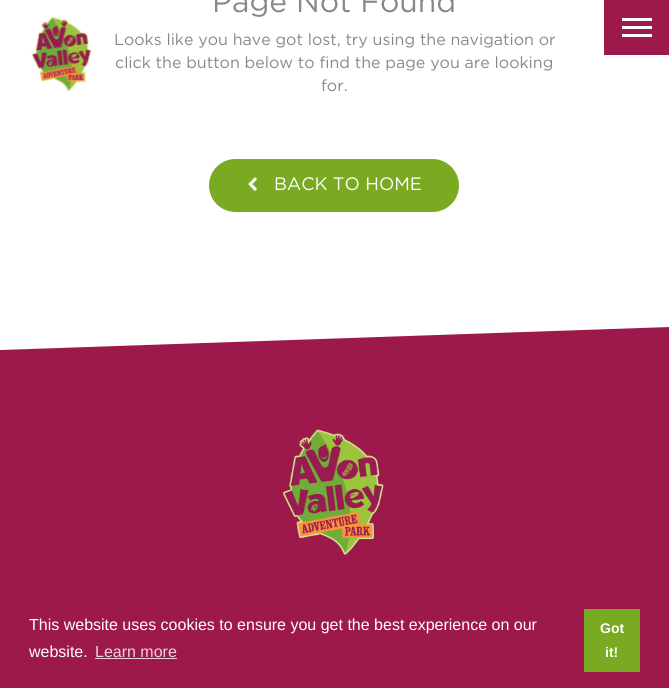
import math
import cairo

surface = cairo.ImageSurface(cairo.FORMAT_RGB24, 669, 688)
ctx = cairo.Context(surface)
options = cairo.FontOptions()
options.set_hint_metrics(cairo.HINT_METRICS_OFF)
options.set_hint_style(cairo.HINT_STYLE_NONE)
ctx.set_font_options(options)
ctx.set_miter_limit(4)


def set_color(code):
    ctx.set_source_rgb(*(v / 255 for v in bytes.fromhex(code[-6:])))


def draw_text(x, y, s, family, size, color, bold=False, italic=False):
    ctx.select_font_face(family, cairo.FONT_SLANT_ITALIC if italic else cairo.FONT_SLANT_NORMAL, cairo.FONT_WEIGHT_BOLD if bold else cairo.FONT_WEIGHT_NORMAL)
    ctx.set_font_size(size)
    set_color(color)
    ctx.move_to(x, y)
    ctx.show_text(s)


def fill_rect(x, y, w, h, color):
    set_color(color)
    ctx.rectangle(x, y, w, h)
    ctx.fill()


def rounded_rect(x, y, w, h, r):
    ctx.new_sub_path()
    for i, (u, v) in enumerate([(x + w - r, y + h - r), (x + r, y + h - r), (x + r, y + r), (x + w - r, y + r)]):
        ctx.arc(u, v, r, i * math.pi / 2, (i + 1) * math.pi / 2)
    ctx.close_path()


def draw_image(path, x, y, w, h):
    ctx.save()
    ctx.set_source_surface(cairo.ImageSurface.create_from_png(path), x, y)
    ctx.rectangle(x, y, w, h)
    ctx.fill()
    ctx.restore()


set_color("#ffffff")
ctx.paint()
draw_image("assets/img1.png", 31, 16, 61, 76)
fill_rect(604, 0, 65, 55, "#9e194b")
fill_rect(622, 18, 30, 3, "#ffffff")
fill_rect(622, 26, 30, 3, "#ffffff")
fill_rect(622, 34, 30, 3, "#ffffff")
draw_text(212, 12, "Page Not Found", "Gotham", 30, "#888888")
draw_text(114, 45, "Looks like you have got lost, try using the navigation or", "Gotham", 16, "#888888")
draw_text(115, 68, "click the button below to find the page you are looking", "Gotham", 16, "#888888")
draw_text(321, 91, "for.", "Gotham", 16, "#888888")
set_color("#79aa21")
rounded_rect(210.5, 160.5, 247, 50, 25)
ctx.fill_preserve()
ctx.set_line_width(3)
ctx.stroke()
draw_image("assets/img2.png", 248, 177, 9, 14)
draw_text(274, 190, "BACK TO HOME", "Gotham", 18, "#ffffff")
fill_rect(0, 364, 669, 324, "#9e194b")
ctx.new_path()
ctx.move_to(0, 350)
ctx.line_to(669, 327)
ctx.line_to(669, 364)
ctx.line_to(0, 387)
ctx.close_path()
ctx.fill()
draw_image("assets/img3.png", 282, 429, 102, 126)
draw_text(29, 630, "This website uses cookies to ensure you get the best experience on our", "Liberation Sans", 16, "#ffffff")
draw_text(29, 657, "website.", "Liberation Sans", 16, "#ffffff")
draw_text(95, 657, "Learn more", "Liberation Sans", 16, "#ecd1db")
fill_rect(95, 658, 82, 1, "#ecd1db")
fill_rect(584, 609, 56, 63, "#79aa21")
draw_text(600, 633, "Got", "Liberation Sans", 14, "#ffffff", bold=True)
draw_text(605, 657, "it!", "Liberation Sans", 14, "#ffffff", bold=True)
surface.write_to_png("output.png")
